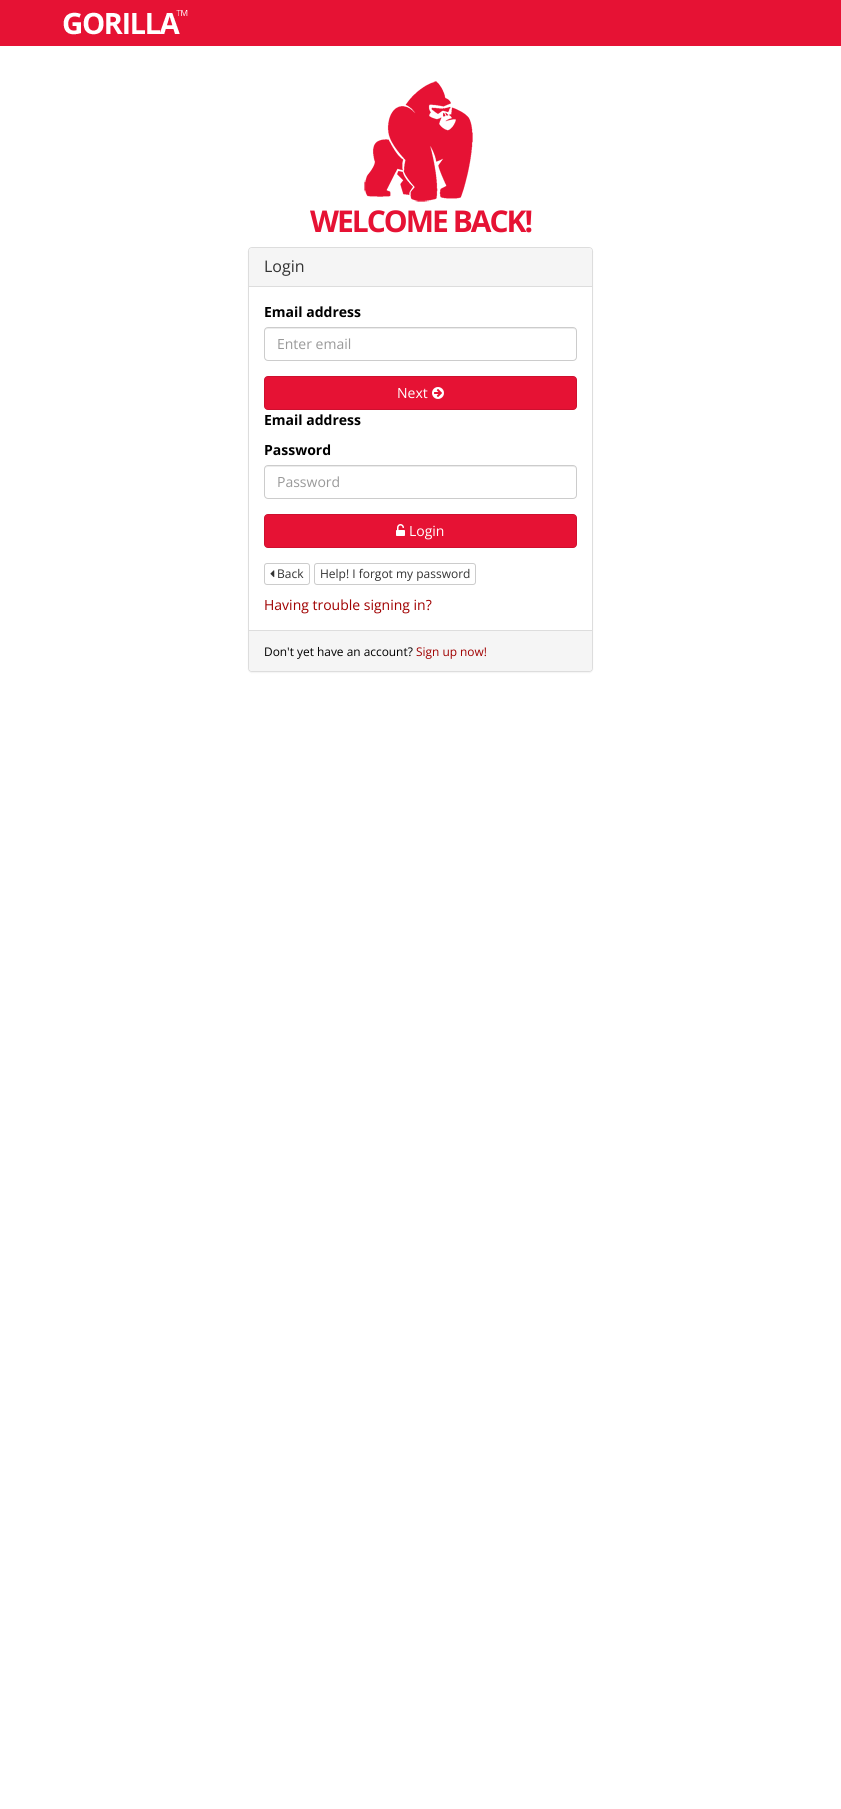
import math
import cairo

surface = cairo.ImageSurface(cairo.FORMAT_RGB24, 841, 1809)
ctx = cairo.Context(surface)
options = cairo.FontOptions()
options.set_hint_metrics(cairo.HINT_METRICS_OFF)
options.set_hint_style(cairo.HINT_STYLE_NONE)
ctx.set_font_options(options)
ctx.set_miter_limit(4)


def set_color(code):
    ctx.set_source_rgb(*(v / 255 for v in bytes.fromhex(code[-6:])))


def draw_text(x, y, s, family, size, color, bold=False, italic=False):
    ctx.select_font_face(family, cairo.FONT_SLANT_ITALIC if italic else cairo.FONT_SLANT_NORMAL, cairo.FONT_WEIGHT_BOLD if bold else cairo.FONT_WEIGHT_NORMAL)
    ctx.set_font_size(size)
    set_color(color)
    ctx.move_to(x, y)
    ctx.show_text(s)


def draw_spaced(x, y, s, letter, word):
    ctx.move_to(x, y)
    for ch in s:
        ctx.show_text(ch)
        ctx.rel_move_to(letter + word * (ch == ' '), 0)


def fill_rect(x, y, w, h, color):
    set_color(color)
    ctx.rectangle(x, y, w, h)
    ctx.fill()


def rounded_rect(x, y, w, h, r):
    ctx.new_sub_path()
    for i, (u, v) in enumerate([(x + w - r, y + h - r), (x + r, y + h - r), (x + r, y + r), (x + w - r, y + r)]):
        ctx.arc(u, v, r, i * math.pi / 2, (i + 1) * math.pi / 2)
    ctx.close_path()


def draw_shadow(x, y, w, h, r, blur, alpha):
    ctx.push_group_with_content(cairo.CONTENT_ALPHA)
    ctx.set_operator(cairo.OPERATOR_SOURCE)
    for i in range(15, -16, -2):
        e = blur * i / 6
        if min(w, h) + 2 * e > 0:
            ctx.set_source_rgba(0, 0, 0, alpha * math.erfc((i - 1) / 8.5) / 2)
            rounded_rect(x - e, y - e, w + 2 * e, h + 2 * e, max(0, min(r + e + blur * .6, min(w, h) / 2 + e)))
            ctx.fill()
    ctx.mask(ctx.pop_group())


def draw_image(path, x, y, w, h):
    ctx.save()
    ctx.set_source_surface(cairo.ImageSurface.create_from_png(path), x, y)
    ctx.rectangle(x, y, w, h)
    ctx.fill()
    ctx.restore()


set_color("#ffffff")
ctx.paint()
fill_rect(0, 0, 841, 46, "#e61234")
draw_image("assets/img1.png", 63, 10, 125, 25)
draw_image("assets/img2.png", 364, 81, 109, 121)
ctx.select_font_face("Open Sans", cairo.FONT_SLANT_NORMAL, cairo.FONT_WEIGHT_BOLD)
ctx.set_font_size(30)
draw_spaced(310, 232, "WELCOME BACK!", -2, 0)
set_color("#000000")
draw_shadow(248, 248, 345, 425, 4, 0.5, 0.05)
set_color("#ffffff")
rounded_rect(248.5, 247.5, 344, 424, 3.5)
ctx.fill_preserve()
set_color("#dddddd")
ctx.set_line_width(1)
ctx.stroke()
set_color("#f5f5f5")
ctx.new_path()
ctx.move_to(252, 248)
ctx.line_to(589, 248)
ctx.curve_to(590.5, 248, 592, 249.5, 592, 251)
ctx.line_to(592, 287)
ctx.line_to(249, 287)
ctx.line_to(249, 251)
ctx.curve_to(249, 249.5, 250.5, 248, 252, 248)
ctx.close_path()
ctx.fill()
fill_rect(249, 286, 343, 1, "#dddddd")
draw_text(264, 272, "Login", "Open Sans", 16, "#333333")
draw_text(264, 317, "Email address", "Open Sans", 14, "#000000", bold=True)
set_color("#ececec")
ctx.new_path()
ctx.move_to(268, 329)
ctx.line_to(573, 329)
ctx.curve_to(575, 329, 576, 330, 576, 332)
ctx.line_to(575, 329)
ctx.line_to(574, 328)
ctx.line_to(268, 328)
ctx.curve_to(266, 328, 265, 330, 265, 332)
ctx.curve_to(265, 330, 266, 329, 268, 329)
ctx.close_path()
ctx.fill()
rounded_rect(264.5, 327.5, 312, 33, 3.5)
set_color("#cccccc")
ctx.stroke()
draw_text(277, 349, "Enter email", "Open Sans", 14, "#999999")
set_color("#e61234")
rounded_rect(264.5, 376.5, 312, 33, 3.5)
ctx.fill_preserve()
set_color("#ce102f")
ctx.stroke()
draw_text(397, 398, "Next", "Open Sans", 14, "#ffffff")
draw_image("assets/img3.png", 432, 387, 12, 12)
draw_text(264, 425, "Email address", "Open Sans", 14, "#000000", bold=True)
draw_text(264, 455, "Password", "Open Sans", 14, "#000000", bold=True)
set_color("#ececec")
ctx.new_path()
ctx.move_to(268, 467)
ctx.line_to(573, 467)
ctx.curve_to(575, 467, 576, 468, 576, 470)
ctx.line_to(575, 467)
ctx.line_to(574, 466)
ctx.line_to(268, 466)
ctx.curve_to(266, 466, 265, 468, 265, 470)
ctx.curve_to(265, 468, 266, 467, 268, 467)
ctx.close_path()
ctx.fill()
rounded_rect(264.5, 465.5, 312, 33, 3.5)
set_color("#cccccc")
ctx.stroke()
draw_text(277, 487, "Password", "Open Sans", 14, "#999999")
set_color("#e61234")
rounded_rect(264.5, 514.5, 312, 33, 3.5)
ctx.fill_preserve()
set_color("#ce102f")
ctx.stroke()
draw_image("assets/img4.png", 396, 524, 9, 12)
draw_text(409, 536, "Login", "Open Sans", 14, "#ffffff")
rounded_rect(264.5, 563.5, 45, 21, 2.5)
set_color("#cccccc")
ctx.stroke()
draw_image("assets/img5.png", 270, 570, 5, 8)
draw_text(277, 578, "Back", "Open Sans", 12, "#333333")
rounded_rect(314.5, 563.5, 161, 21, 2.5)
set_color("#cccccc")
ctx.stroke()
draw_text(320, 578, "Help! I forgot my password", "Open Sans", 12, "#333333")
draw_text(264, 610, "Having trouble signing in?", "Open Sans", 14, "#a00000")
set_color("#f5f5f5")
ctx.new_path()
ctx.move_to(249, 630)
ctx.line_to(592, 630)
ctx.line_to(592, 668)
ctx.curve_to(592, 669.5, 590.5, 671, 589, 671)
ctx.line_to(252, 671)
ctx.curve_to(250.5, 671, 249, 669.5, 249, 668)
ctx.close_path()
ctx.fill()
fill_rect(249, 630, 343, 1, "#dddddd")
draw_text(264, 656, "Don't yet have an account?", "Open Sans", 11.9, "#000000")
draw_text(416, 656, "Sign up now!", "Open Sans", 11.9, "#a00000")
surface.write_to_png("output.png")
